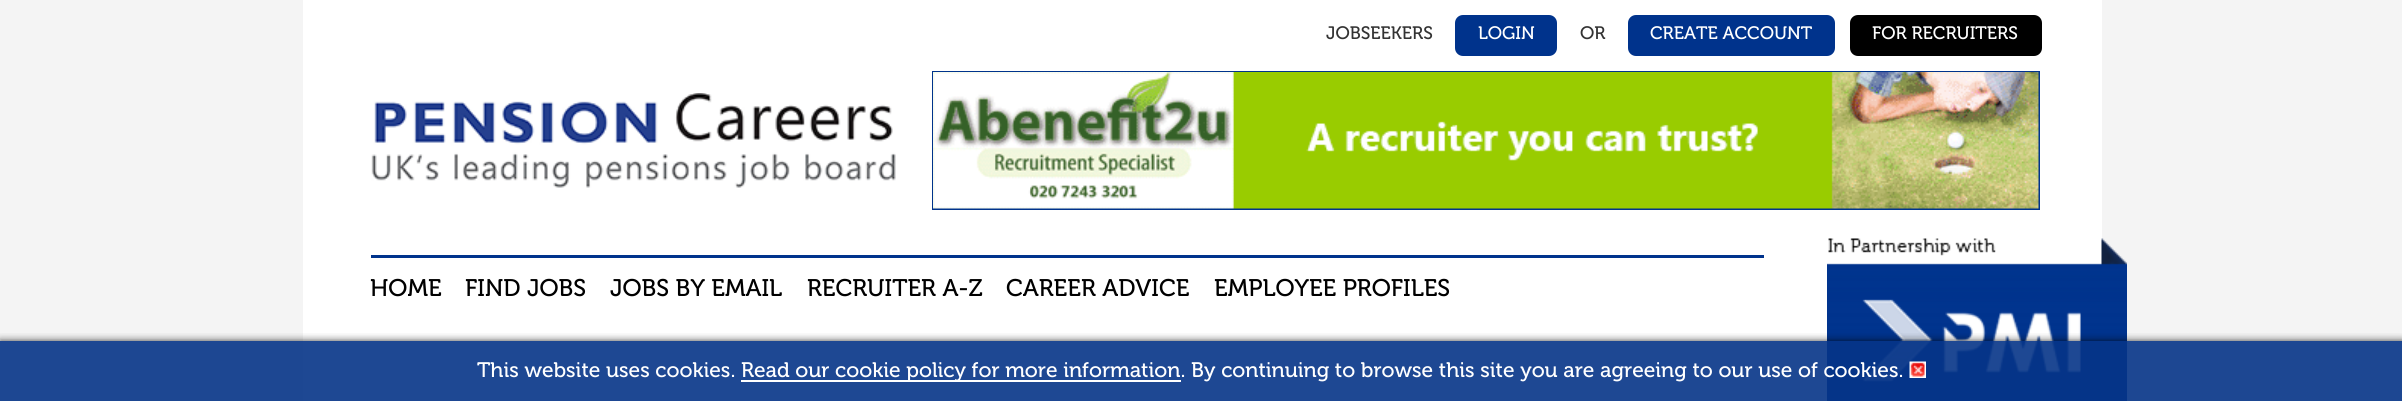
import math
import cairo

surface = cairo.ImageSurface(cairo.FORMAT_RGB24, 2402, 401)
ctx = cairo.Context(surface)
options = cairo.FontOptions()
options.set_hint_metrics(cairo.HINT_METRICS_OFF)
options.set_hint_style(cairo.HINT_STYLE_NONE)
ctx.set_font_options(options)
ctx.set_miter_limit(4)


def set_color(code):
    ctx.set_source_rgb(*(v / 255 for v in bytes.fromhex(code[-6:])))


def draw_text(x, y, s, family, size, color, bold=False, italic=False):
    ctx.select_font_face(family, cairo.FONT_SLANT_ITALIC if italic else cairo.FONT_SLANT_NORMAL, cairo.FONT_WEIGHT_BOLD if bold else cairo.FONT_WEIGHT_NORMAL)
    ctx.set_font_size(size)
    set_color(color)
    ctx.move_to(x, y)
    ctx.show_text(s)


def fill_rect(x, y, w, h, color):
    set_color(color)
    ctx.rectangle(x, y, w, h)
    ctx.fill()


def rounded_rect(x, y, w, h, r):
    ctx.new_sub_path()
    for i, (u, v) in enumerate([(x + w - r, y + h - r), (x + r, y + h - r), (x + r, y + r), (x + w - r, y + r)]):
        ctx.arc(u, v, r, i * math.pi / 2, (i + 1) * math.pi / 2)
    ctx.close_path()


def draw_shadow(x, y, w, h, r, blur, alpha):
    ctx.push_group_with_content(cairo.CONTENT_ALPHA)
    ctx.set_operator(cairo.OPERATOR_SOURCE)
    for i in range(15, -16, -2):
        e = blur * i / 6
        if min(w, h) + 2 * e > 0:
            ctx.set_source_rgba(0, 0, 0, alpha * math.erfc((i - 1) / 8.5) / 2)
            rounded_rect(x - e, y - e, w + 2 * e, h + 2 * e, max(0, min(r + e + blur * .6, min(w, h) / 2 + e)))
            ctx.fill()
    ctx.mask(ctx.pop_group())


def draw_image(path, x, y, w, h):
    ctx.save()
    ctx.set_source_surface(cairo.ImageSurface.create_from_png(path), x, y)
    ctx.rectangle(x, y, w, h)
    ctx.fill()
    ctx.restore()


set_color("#f4f4f4")
ctx.paint()
fill_rect(303, 0, 1799, 338, "#ffffff")
draw_text(1326, 39, "JOBSEEKERS", "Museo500", 18, "#333333")
set_color("#00338c")
rounded_rect(1455, 15, 102, 41, 8)
ctx.fill()
draw_text(1478, 39, "LOGIN", "Museo500", 18, "#ffffff")
draw_text(1580, 39, "OR", "Museo500", 18, "#333333")
set_color("#00338c")
rounded_rect(1628, 15, 207, 41, 8)
ctx.fill()
draw_text(1650, 39, "CREATE ACCOUNT", "Museo500", 18, "#ffffff")
set_color("#000000")
rounded_rect(1850, 15, 192, 41, 8)
ctx.fill()
draw_text(1872, 39, "FOR RECRUITERS", "Museo500", 18, "#ffffff")
draw_image("assets/img1.png", 371, 93, 525, 95)
ctx.rectangle(933, 72, 1106, 137)
set_color("#00338c")
ctx.stroke()
draw_image("assets/img2.png", 933, 72, 1106, 137)
fill_rect(371, 255, 1393, 3, "#00338c")
draw_text(370, 296, "HOME", "Museo500", 24, "#000000")
draw_text(465, 296, "FIND JOBS", "Museo500", 24, "#000000")
draw_text(610, 296, "JOBS BY EMAIL", "Museo500", 24, "#000000")
draw_text(807, 296, "RECRUITER A-Z", "Museo500", 24, "#000000")
draw_text(1006, 296, "CAREER ADVICE", "Museo500", 24, "#000000")
draw_text(1214, 296, "EMPLOYEE PROFILES", "Museo500", 24, "#000000")
draw_image("assets/img3.png", 1827, 238, 300, 163)
fill_rect(303, 338, 1524, 63, "#ffffff")
ctx.save()
ctx.rectangle(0, 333, 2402, 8)
ctx.clip()
set_color("#000000")
draw_shadow(0, 341, 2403, 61, 0, 4, 0.75)
ctx.restore()
ctx.set_source_rgba(0.024, 0.208, 0.533, 0.9)
ctx.rectangle(0, 341, 2402, 60)
ctx.fill()
draw_text(477, 377, "This website uses cookies.", "Museo500", 21, "#ffffff")
fill_rect(741, 380, 440, 2, "#ffffff")
draw_text(741, 377, "Read our cookie policy for more information. By continuing to browse this site you are agreeing to our use of cookies.", "Museo500", 21, "#ffffff")
draw_image("assets/img4.png", 1909, 361, 17, 17)
surface.write_to_png("output.png")
